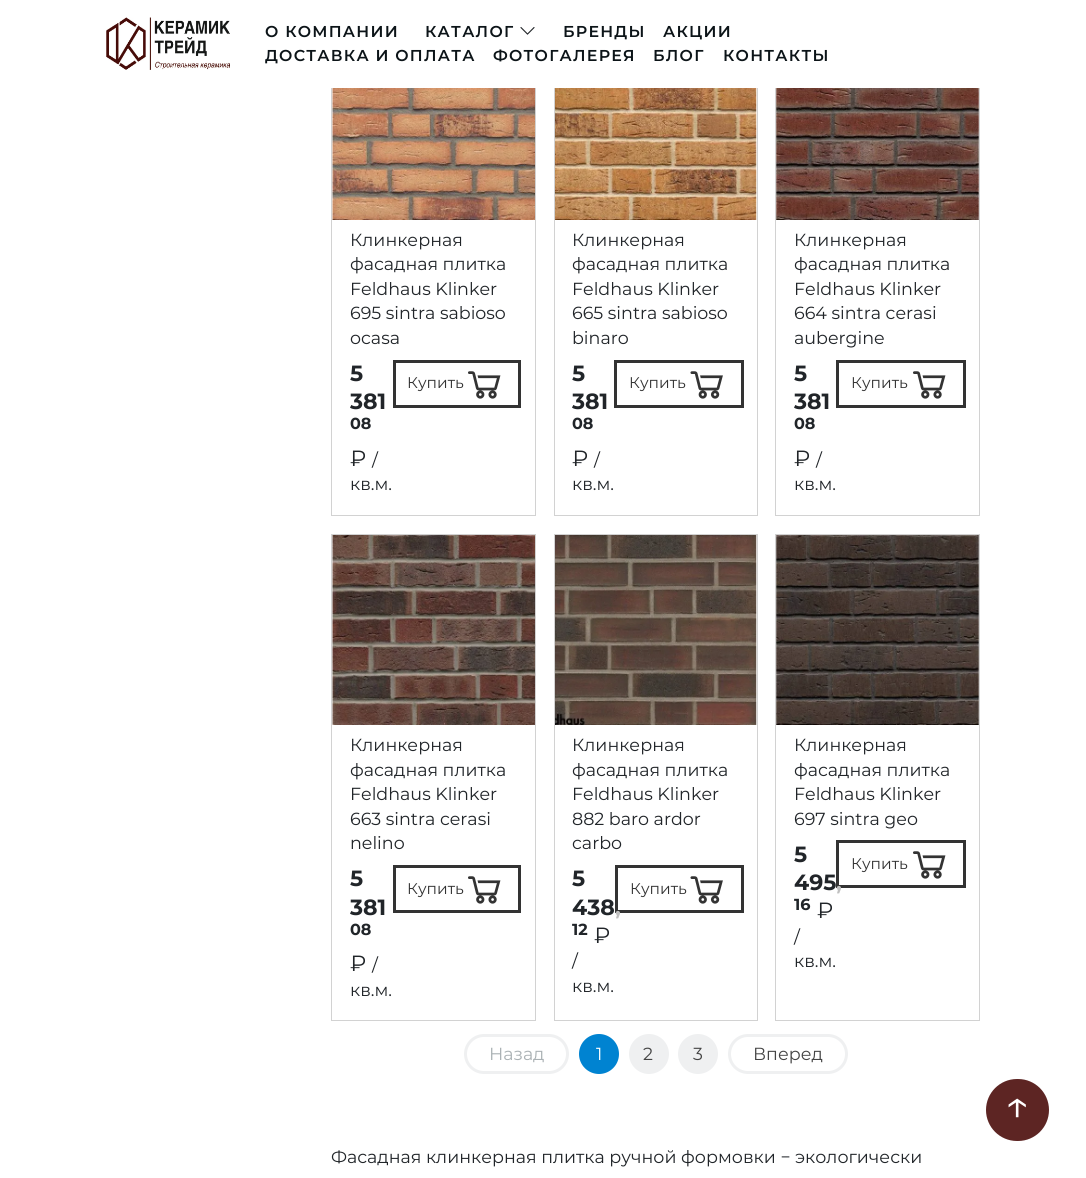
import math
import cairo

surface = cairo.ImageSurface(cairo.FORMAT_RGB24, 1086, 1178)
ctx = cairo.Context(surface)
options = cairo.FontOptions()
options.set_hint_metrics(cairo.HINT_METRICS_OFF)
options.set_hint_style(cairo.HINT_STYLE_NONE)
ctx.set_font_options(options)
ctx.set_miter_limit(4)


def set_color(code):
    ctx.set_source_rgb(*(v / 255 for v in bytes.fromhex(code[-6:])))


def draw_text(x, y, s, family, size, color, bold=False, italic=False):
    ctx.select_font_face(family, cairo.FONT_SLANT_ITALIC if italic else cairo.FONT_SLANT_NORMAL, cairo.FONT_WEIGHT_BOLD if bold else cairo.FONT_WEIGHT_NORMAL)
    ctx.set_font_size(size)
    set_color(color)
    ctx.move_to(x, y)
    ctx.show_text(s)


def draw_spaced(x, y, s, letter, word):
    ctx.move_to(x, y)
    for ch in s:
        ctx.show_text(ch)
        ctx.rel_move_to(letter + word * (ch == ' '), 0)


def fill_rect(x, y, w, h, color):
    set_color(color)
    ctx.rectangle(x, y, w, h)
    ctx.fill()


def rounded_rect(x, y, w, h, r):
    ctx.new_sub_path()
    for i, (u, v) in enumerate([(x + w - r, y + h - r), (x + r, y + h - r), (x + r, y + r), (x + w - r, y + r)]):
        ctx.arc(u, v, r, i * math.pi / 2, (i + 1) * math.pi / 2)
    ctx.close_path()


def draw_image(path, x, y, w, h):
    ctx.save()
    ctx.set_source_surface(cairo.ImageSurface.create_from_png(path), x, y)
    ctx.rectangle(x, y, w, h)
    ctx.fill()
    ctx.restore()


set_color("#ffffff")
ctx.paint()
ctx.rectangle(331.5, 28.5, 204, 487)
set_color("#d2d2d2")
ctx.set_line_width(1)
ctx.stroke()
ctx.rectangle(554.5, 28.5, 203, 487)
ctx.stroke()
ctx.rectangle(775.5, 28.5, 204, 487)
ctx.stroke()
fill_rect(331, 28, 649, 60, "#ffffff")
draw_image("assets/img1.png", 106, 17, 124, 53)
ctx.select_font_face("Montserrat SemiBold")
ctx.set_font_size(15.75)
set_color("#0c1418")
draw_spaced(265, 37, "О КОМПАНИИ", 1.25, 0)
draw_spaced(425, 37, "КАТАЛОГ", 1.25, 0)
draw_image("assets/img2.png", 520, 27, 15, 8)
draw_spaced(563, 37, "БРЕНДЫ", 1.25, 0)
draw_spaced(663, 37, "АКЦИИ", 1.25, 0)
draw_spaced(265, 61, "ДОСТАВКА И ОПЛАТА", 1.25, 0)
draw_spaced(493, 61, "ФОТОГАЛЕРЕЯ", 1.25, 0)
draw_spaced(653, 61, "БЛОГ", 1.25, 0)
draw_spaced(723, 61, "КОНТАКТЫ", 1.25, 0)
draw_image("assets/img3.png", 332, 88, 203, 132)
draw_text(350, 246, "Клинкерная", "Montserrat", 17.5, "#212529")
draw_text(350, 270, "фасадная плитка", "Montserrat", 17.5, "#212529")
draw_text(350, 295, "Feldhaus Klinker", "Montserrat", 17.5, "#212529")
draw_text(350, 319, "695 sintra sabioso", "Montserrat", 17.5, "#212529")
draw_text(350, 344, "ocasa", "Montserrat", 17.5, "#212529")
draw_text(350, 381, "5", "Montserrat", 22, "#212529", bold=True)
draw_text(350, 409, "381", "Montserrat", 22, "#212529", bold=True)
draw_text(350, 429, "08", "Montserrat", 16, "#212529", bold=True)
draw_text(350, 466, "₽", "Montserrat", 22, "#212529")
draw_text(372, 466, "/", "Montserrat", 17.5, "#212529")
draw_text(350, 490, "кв.м.", "Montserrat", 17.5, "#212529")
ctx.rectangle(394.5, 361.5, 125, 45)
set_color("#333333")
ctx.set_line_width(3)
ctx.stroke()
draw_text(407, 388, "Купить", "Montserrat", 15.5, "#333333")
draw_image("assets/img4.png", 468, 371, 33, 28)
draw_image("assets/img5.png", 555, 88, 202, 132)
draw_text(572, 246, "Клинкерная", "Montserrat", 17.5, "#212529")
draw_text(572, 270, "фасадная плитка", "Montserrat", 17.5, "#212529")
draw_text(572, 295, "Feldhaus Klinker", "Montserrat", 17.5, "#212529")
draw_text(572, 319, "665 sintra sabioso", "Montserrat", 17.5, "#212529")
draw_text(572, 344, "binaro", "Montserrat", 17.5, "#212529")
draw_text(572, 381, "5", "Montserrat", 22, "#212529", bold=True)
draw_text(572, 409, "381", "Montserrat", 22, "#212529", bold=True)
draw_text(572, 429, "08", "Montserrat", 16, "#212529", bold=True)
draw_text(572, 466, "₽", "Montserrat", 22, "#212529")
draw_text(594, 466, "/", "Montserrat", 17.5, "#212529")
draw_text(572, 490, "кв.м.", "Montserrat", 17.5, "#212529")
ctx.rectangle(615.5, 361.5, 127, 45)
set_color("#333333")
ctx.stroke()
draw_text(629, 388, "Купить", "Montserrat", 15.5, "#333333")
draw_image("assets/img6.png", 690, 371, 33, 28)
draw_image("assets/img7.png", 776, 88, 203, 132)
draw_text(794, 246, "Клинкерная", "Montserrat", 17.5, "#212529")
draw_text(794, 270, "фасадная плитка", "Montserrat", 17.5, "#212529")
draw_text(794, 295, "Feldhaus Klinker", "Montserrat", 17.5, "#212529")
draw_text(794, 319, "664 sintra cerasi", "Montserrat", 17.5, "#212529")
draw_text(794, 344, "aubergine", "Montserrat", 17.5, "#212529")
draw_text(794, 381, "5", "Montserrat", 22, "#212529", bold=True)
draw_text(794, 409, "381", "Montserrat", 22, "#212529", bold=True)
draw_text(794, 429, "08", "Montserrat", 16, "#212529", bold=True)
draw_text(794, 466, "₽", "Montserrat", 22, "#212529")
draw_text(816, 466, "/", "Montserrat", 17.5, "#212529")
draw_text(794, 490, "кв.м.", "Montserrat", 17.5, "#212529")
ctx.rectangle(837.5, 361.5, 127, 45)
set_color("#333333")
ctx.stroke()
draw_text(851, 388, "Купить", "Montserrat", 15.5, "#333333")
draw_image("assets/img4.png", 913, 371, 33, 28)
ctx.rectangle(331.5, 534.5, 204, 486)
set_color("#d2d2d2")
ctx.set_line_width(1)
ctx.stroke()
draw_image("assets/img8.png", 332, 535, 203, 190)
draw_text(350, 751, "Клинкерная", "Montserrat", 17.5, "#212529")
draw_text(350, 776, "фасадная плитка", "Montserrat", 17.5, "#212529")
draw_text(350, 800, "Feldhaus Klinker", "Montserrat", 17.5, "#212529")
draw_text(350, 825, "663 sintra cerasi", "Montserrat", 17.5, "#212529")
draw_text(350, 849, "nelino", "Montserrat", 17.5, "#212529")
draw_text(350, 886, "5", "Montserrat", 22, "#212529", bold=True)
draw_text(350, 915, "381", "Montserrat", 22, "#212529", bold=True)
draw_text(350, 935, "08", "Montserrat", 16, "#212529", bold=True)
draw_text(350, 971, "₽", "Montserrat", 22, "#212529")
draw_text(372, 971, "/", "Montserrat", 17.5, "#212529")
draw_text(350, 996, "кв.м.", "Montserrat", 17.5, "#212529")
ctx.rectangle(394.5, 866.5, 125, 45)
set_color("#333333")
ctx.set_line_width(3)
ctx.stroke()
draw_text(407, 894, "Купить", "Montserrat", 15.5, "#333333")
draw_image("assets/img4.png", 468, 876, 33, 28)
ctx.rectangle(554.5, 534.5, 203, 486)
set_color("#d2d2d2")
ctx.set_line_width(1)
ctx.stroke()
draw_image("assets/img9.png", 555, 535, 202, 190)
draw_text(572, 751, "Клинкерная", "Montserrat", 17.5, "#212529")
draw_text(572, 776, "фасадная плитка", "Montserrat", 17.5, "#212529")
draw_text(572, 800, "Feldhaus Klinker", "Montserrat", 17.5, "#212529")
draw_text(572, 825, "882 baro ardor", "Montserrat", 17.5, "#212529")
draw_text(572, 849, "carbo", "Montserrat", 17.5, "#212529")
draw_text(572, 886, "5", "Montserrat", 22, "#212529", bold=True)
draw_text(572, 915, "438", "Montserrat", 22, "#212529", bold=True)
ctx.rectangle(616.5, 866.5, 126, 45)
set_color("#333333")
ctx.set_line_width(3)
ctx.stroke()
draw_text(615, 915, ",", "Montserrat", 22, "#c0c0c0", bold=True)
draw_text(572, 935, "12", "Montserrat", 16, "#212529", bold=True)
draw_text(594, 943, "₽", "Montserrat", 22, "#212529")
draw_text(572, 967, "/", "Montserrat", 17.5, "#212529")
draw_text(572, 992, "кв.м.", "Montserrat", 17.5, "#212529")
draw_text(630, 894, "Купить", "Montserrat", 15.5, "#333333")
draw_image("assets/img6.png", 690, 876, 33, 28)
ctx.rectangle(775.5, 534.5, 204, 486)
set_color("#d2d2d2")
ctx.set_line_width(1)
ctx.stroke()
draw_image("assets/img10.png", 776, 535, 203, 190)
draw_text(794, 751, "Клинкерная", "Montserrat", 17.5, "#212529")
draw_text(794, 776, "фасадная плитка", "Montserrat", 17.5, "#212529")
draw_text(794, 800, "Feldhaus Klinker", "Montserrat", 17.5, "#212529")
draw_text(794, 825, "697 sintra geo", "Montserrat", 17.5, "#212529")
draw_text(794, 862, "5", "Montserrat", 22, "#212529", bold=True)
draw_text(794, 890, "495", "Montserrat", 22, "#212529", bold=True)
ctx.rectangle(837.5, 841.5, 127, 45)
set_color("#333333")
ctx.set_line_width(3)
ctx.stroke()
draw_text(836, 890, ",", "Montserrat", 22, "#c0c0c0", bold=True)
draw_text(794, 910, "16", "Montserrat", 16, "#212529", bold=True)
draw_text(817, 918, "₽", "Montserrat", 22, "#212529")
draw_text(794, 943, "/", "Montserrat", 17.5, "#212529")
draw_text(794, 967, "кв.м.", "Montserrat", 17.5, "#212529")
draw_text(851, 869, "Купить", "Montserrat", 15.5, "#333333")
draw_image("assets/img4.png", 913, 851, 33, 28)
rounded_rect(465.5, 1035.5, 102, 37, 18.5)
set_color("#eff0f1")
ctx.stroke()
draw_text(489, 1060, "Назад", "Montserrat", 17.5, "#aab1b4")
set_color("#0083d1")
ctx.new_path()
ctx.arc(599, 1054, 20, 0, 2 * math.pi)
ctx.fill()
draw_text(596, 1060, "1", "Montserrat", 17.5, "#ffffff")
set_color("#eff0f1")
ctx.new_path()
ctx.arc(649, 1054, 20, 0, 2 * math.pi)
ctx.fill()
draw_text(643, 1060, "2", "Montserrat", 17.5, "#444444")
set_color("#eff0f1")
ctx.new_path()
ctx.arc(698, 1054, 20, 0, 2 * math.pi)
ctx.fill()
draw_text(693, 1060, "3", "Montserrat", 17.5, "#444444")
rounded_rect(729.5, 1035.5, 117, 37, 18.5)
set_color("#eff0f1")
ctx.stroke()
draw_text(753, 1060, "Вперед", "Montserrat", 17.5, "#444444")
draw_text(331, 1163, "Фасадная клинкерная плитка ручной формовки − экологически", "Montserrat", 17.5, "#212529")
set_color("#5d2523")
rounded_rect(986, 1079, 63, 62, 31)
ctx.fill()
draw_text(1004, 1120, "↑", "Montserrat", 44, "#ffffff")
surface.write_to_png("output.png")
